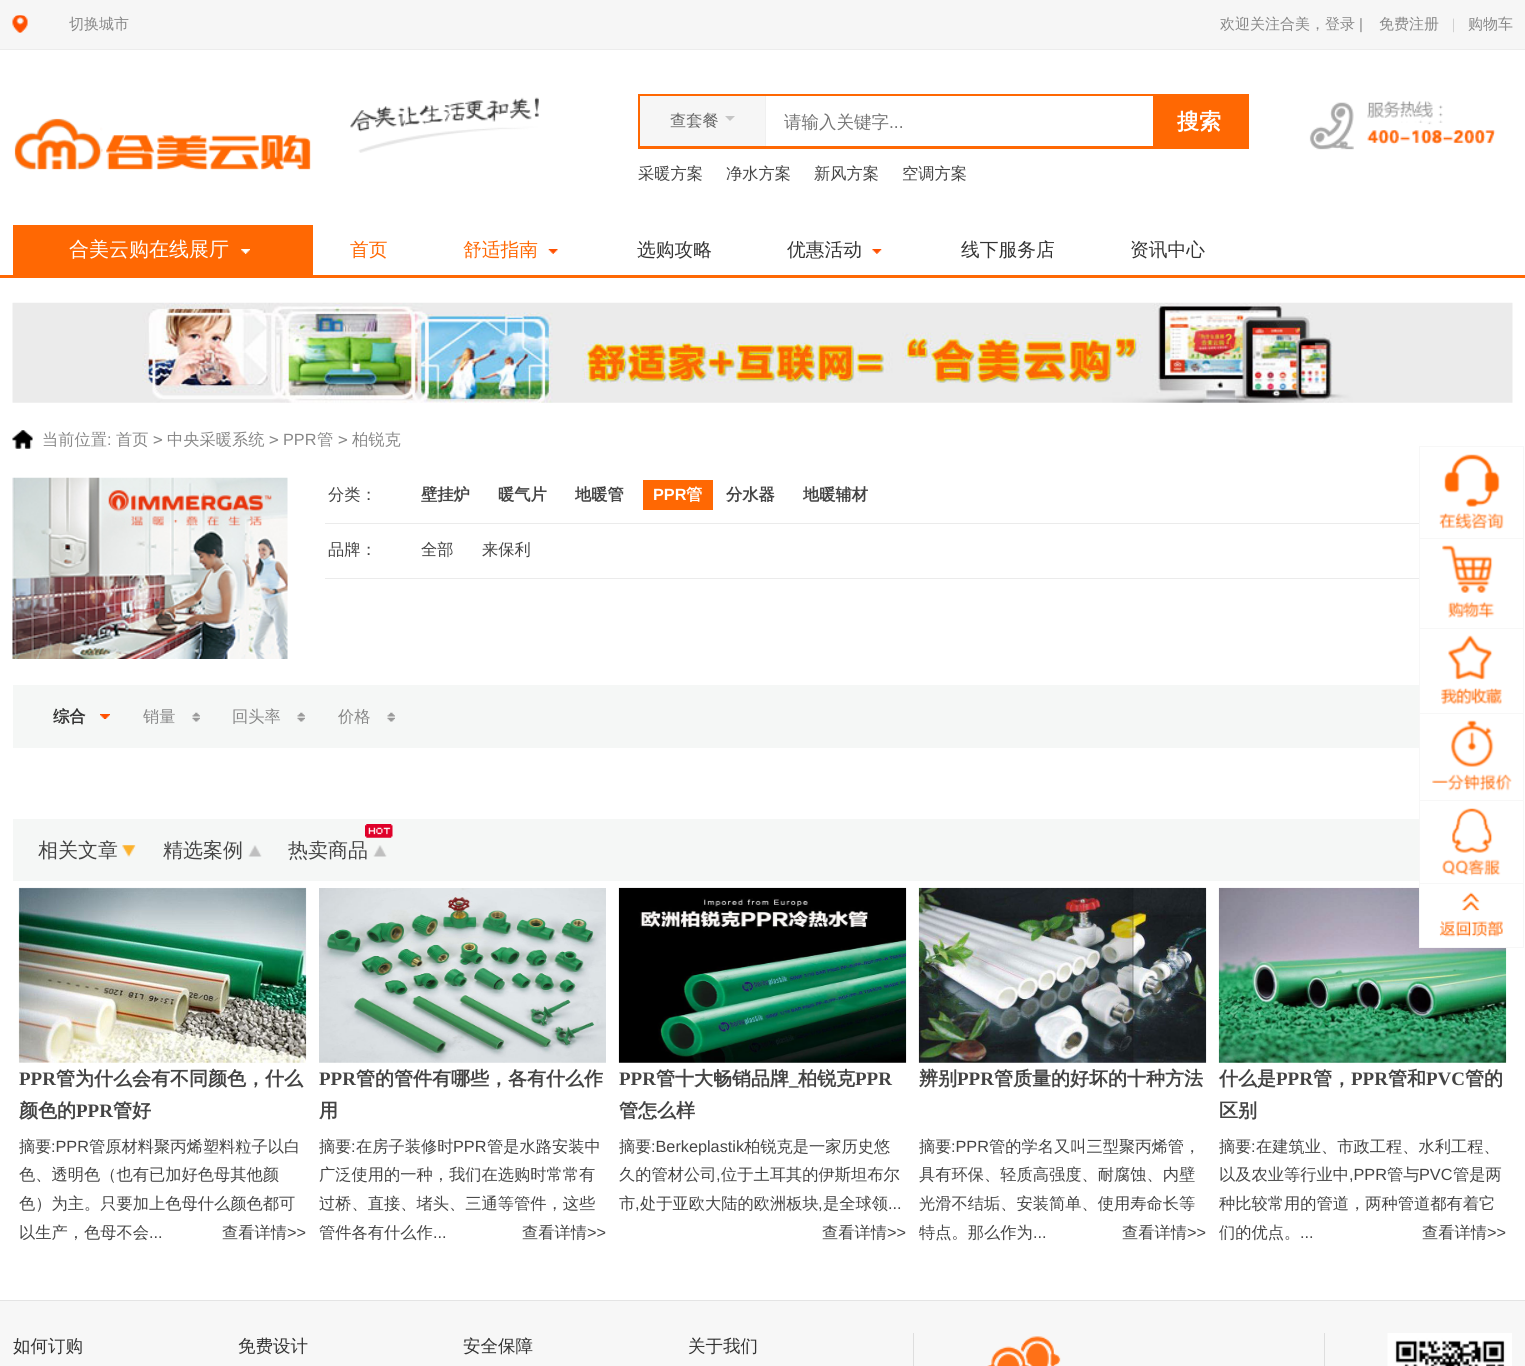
import math
import cairo

surface = cairo.ImageSurface(cairo.FORMAT_RGB24, 1525, 1366)
ctx = cairo.Context(surface)
options = cairo.FontOptions()
options.set_hint_metrics(cairo.HINT_METRICS_OFF)
options.set_hint_style(cairo.HINT_STYLE_NONE)
ctx.set_font_options(options)
ctx.set_miter_limit(4)


def set_color(code):
    ctx.set_source_rgb(*(v / 255 for v in bytes.fromhex(code[-6:])))


def draw_text(x, y, s, family, size, color, bold=False, italic=False):
    ctx.select_font_face(family, cairo.FONT_SLANT_ITALIC if italic else cairo.FONT_SLANT_NORMAL, cairo.FONT_WEIGHT_BOLD if bold else cairo.FONT_WEIGHT_NORMAL)
    ctx.set_font_size(size)
    set_color(color)
    ctx.move_to(x, y)
    ctx.show_text(s)


def fill_rect(x, y, w, h, color):
    set_color(color)
    ctx.rectangle(x, y, w, h)
    ctx.fill()


def draw_image(path, x, y, w, h):
    ctx.save()
    ctx.set_source_surface(cairo.ImageSurface.create_from_png(path), x, y)
    ctx.rectangle(x, y, w, h)
    ctx.fill()
    ctx.restore()


set_color("#ffffff")
ctx.paint()
fill_rect(0, 0, 1525, 49, "#f6f6f6")
fill_rect(0, 49, 1525, 1, "#ececec")
draw_image("assets/img1.png", 12, 15, 16, 18)
draw_text(69, 29, "切换城市", "WenQuanYi Zen Hei Medium", 15, "#888888")
draw_text(1220, 29, "欢迎关注合美，登录", "WenQuanYi Zen Hei Medium", 15, "#888888")
draw_text(1359, 29, "|", "Liberation Sans", 15, "#888888")
draw_text(1379, 29, "免费注册", "WenQuanYi Zen Hei Medium", 15, "#888888")
draw_text(1452, 29, "|", "Liberation Serif", 15, "#c5c5c5")
draw_text(1468, 29, "购物车", "WenQuanYi Zen Hei Medium", 15, "#888888")
fill_rect(0, 275, 1525, 3, "#ff6803")
draw_image("assets/img2.png", 14, 118, 297, 52)
draw_image("assets/img3.png", 350, 97, 189, 56)
ctx.rectangle(639.5, 95.5, 608, 52)
ctx.set_line_width(3)
ctx.stroke()
fill_rect(640, 96, 125, 50, "#f6f6f6")
draw_text(670, 126, "查套餐", "WenQuanYi Zen Hei Medium", 16.25, "#666666")
set_color("#c5c5c5")
ctx.new_path()
ctx.move_to(725, 116)
ctx.line_to(735, 116)
ctx.line_to(730, 121)
ctx.close_path()
ctx.fill()
fill_rect(766, 96, 387, 1, "#ffffff")
fill_rect(765, 96, 1, 50, "#f0f0f0")
draw_text(784, 128, "请输入关键字", "WenQuanYi Zen Hei Medium", 17.5, "#757575")
draw_text(889, 128, "...", "Liberation Sans", 17.5, "#757575")
fill_rect(1153, 97, 93, 49, "#ff6803")
draw_text(1177, 129, "搜索", "WenQuanYi Zen Hei", 22, "#ffffff", bold=True)
draw_text(638, 179, "采暖方案", "WenQuanYi Zen Hei Medium", 16.25, "#444444")
draw_text(726, 179, "净水方案", "WenQuanYi Zen Hei Medium", 16.25, "#444444")
draw_text(814, 179, "新风方案", "WenQuanYi Zen Hei Medium", 16.25, "#444444")
draw_text(902, 179, "空调方案", "WenQuanYi Zen Hei Medium", 16.25, "#444444")
draw_image("assets/img4.png", 1309, 101, 187, 49)
fill_rect(13, 225, 300, 50, "#ff6803")
draw_text(69, 256, "合美云购在线展厅", "WenQuanYi Zen Hei Medium", 20, "#ffffff")
draw_image("assets/img5.png", 241, 249, 9, 5)
draw_text(350, 256, "首页", "WenQuanYi Zen Hei Medium", 18.75, "#ff6803")
draw_text(463, 256, "舒适指南", "WenQuanYi Zen Hei Medium", 18.75, "#ff6803")
draw_image("assets/img6.png", 548, 249, 10, 5)
draw_text(637, 256, "选购攻略", "WenQuanYi Zen Hei Medium", 18.75, "#333333")
draw_text(787, 256, "优惠活动", "WenQuanYi Zen Hei Medium", 18.75, "#333333")
draw_image("assets/img7.png", 872, 249, 10, 5)
draw_text(961, 256, "线下服务店", "WenQuanYi Zen Hei Medium", 18.75, "#333333")
draw_text(1130, 256, "资讯中心", "WenQuanYi Zen Hei Medium", 18.75, "#333333")
draw_image("assets/img8.png", 12, 302, 1501, 101)
draw_image("assets/img9.png", 12, 430, 21, 19)
draw_text(42, 445, "当前位置", "WenQuanYi Zen Hei Medium", 16.25, "#888888")
draw_text(107, 445, ":", "Liberation Sans", 16.25, "#888888")
draw_text(116, 445, "首页", "WenQuanYi Zen Hei Medium", 16.25, "#888888")
draw_text(153, 445, ">", "DejaVu Sans Mono", 16.25, "#888888")
draw_text(167, 445, "中央采暖系统", "WenQuanYi Zen Hei Medium", 16.25, "#888888")
draw_text(269, 445, ">", "DejaVu Sans Mono", 16.25, "#888888")
draw_text(283, 445, "PPR", "Liberation Sans", 16.25, "#888888")
draw_text(317, 445, "管", "WenQuanYi Zen Hei Medium", 16.25, "#888888")
draw_text(338, 445, ">", "DejaVu Sans Mono", 16.25, "#888888")
draw_text(352, 445, "柏锐克", "WenQuanYi Zen Hei Medium", 16.25, "#888888")
draw_image("assets/img10.png", 12, 477, 276, 182)
fill_rect(325, 523, 1094, 1, "#ebebeb")
draw_text(328, 500, "分类：", "WenQuanYi Zen Hei Medium", 16.25, "#444444")
draw_text(421, 500, "壁挂炉", "WenQuanYi Zen Hei", 16.25, "#444444", bold=True)
draw_text(498, 500, "暖气片", "WenQuanYi Zen Hei", 16.25, "#444444", bold=True)
draw_text(575, 500, "地暖管", "WenQuanYi Zen Hei", 16.25, "#444444", bold=True)
fill_rect(643, 480, 70, 30, "#ff6803")
draw_text(653, 500, "PPR", "Liberation Sans", 16.25, "#ffffff", bold=True)
draw_text(686, 500, "管", "WenQuanYi Zen Hei", 16.25, "#ffffff", bold=True)
draw_text(726, 500, "分水器", "WenQuanYi Zen Hei", 16.25, "#444444", bold=True)
draw_text(803, 500, "地暖辅材", "WenQuanYi Zen Hei", 16.25, "#444444", bold=True)
fill_rect(325, 578, 1094, 1, "#ebebeb")
draw_text(328, 555, "品牌：", "WenQuanYi Zen Hei Medium", 16.25, "#444444")
draw_text(421, 555, "全部", "WenQuanYi Zen Hei Medium", 16.25, "#444444")
draw_text(482, 555, "来保利", "WenQuanYi Zen Hei Medium", 16.25, "#444444")
draw_image("assets/img28.png", 1218, 887, 289, 176)
fill_rect(1420, 887, 87, 60, "#ffffff")
fill_rect(1419, 446, 105, 1, "#f7f7f7")
fill_rect(1523, 446, 1, 92, "#f7f7f7")
fill_rect(1419, 446, 1, 92, "#f7f7f7")
draw_image("assets/img11.png", 1439, 454, 65, 76)
fill_rect(1419, 538, 105, 1, "#f7f7f7")
fill_rect(1523, 538, 1, 90, "#f7f7f7")
fill_rect(1419, 538, 1, 90, "#f7f7f7")
draw_image("assets/img12.png", 1442, 545, 53, 73)
fill_rect(1419, 628, 105, 1, "#f7f7f7")
fill_rect(1523, 628, 1, 85, "#f7f7f7")
fill_rect(1419, 628, 1, 85, "#f7f7f7")
draw_image("assets/img13.png", 1441, 635, 61, 70)
fill_rect(1419, 713, 105, 1, "#f7f7f7")
fill_rect(1523, 713, 1, 87, "#f7f7f7")
fill_rect(1419, 713, 1, 87, "#f7f7f7")
draw_image("assets/img14.png", 1432, 720, 80, 71)
fill_rect(1419, 800, 105, 1, "#f7f7f7")
fill_rect(1523, 800, 1, 83, "#f7f7f7")
fill_rect(1419, 800, 1, 83, "#f7f7f7")
draw_image("assets/img15.png", 1442, 808, 59, 68)
ctx.rectangle(1419.5, 883.5, 104, 64)
ctx.set_line_width(1)
ctx.stroke()
draw_image("assets/img16.png", 1439, 892, 64, 45)
fill_rect(13, 685, 1406, 63, "#f5f7f6")
draw_image("assets/img17.png", 100, 714, 10, 5)
draw_text(53, 722, "综合", "WenQuanYi Zen Hei", 16.25, "#333333", bold=True)
draw_image("assets/img18.png", 192, 712, 8, 10)
draw_text(143, 722, "销量", "WenQuanYi Zen Hei Medium", 16.25, "#888888")
draw_image("assets/img18.png", 297, 712, 8, 10)
draw_text(232, 722, "回头率", "WenQuanYi Zen Hei Medium", 16.25, "#888888")
draw_image("assets/img19.png", 387, 712, 8, 10)
draw_text(338, 722, "价格", "WenQuanYi Zen Hei Medium", 16.25, "#888888")
fill_rect(13, 819, 1406, 62, "#f5f7f6")
draw_text(38, 857, "相关文章", "WenQuanYi Zen Hei Medium", 20, "#444444")
draw_image("assets/img20.png", 122, 845, 14, 12)
draw_text(163, 857, "精选案例", "WenQuanYi Zen Hei Medium", 20, "#444444")
draw_image("assets/img21.png", 248, 845, 14, 12)
draw_image("assets/img22.png", 365, 824, 28, 14)
draw_text(288, 857, "热卖商品", "WenQuanYi Zen Hei Medium", 20, "#444444")
draw_image("assets/img23.png", 373, 845, 14, 12)
draw_image("assets/img24.png", 18, 887, 289, 176)
draw_text(19, 1085, "PPR", "Liberation Serif", 19, "#444444", bold=True)
draw_text(56, 1085, "管为什么会有不同颜色，什么", "WenQuanYi Zen Hei", 19, "#444444", bold=True)
draw_text(19, 1117, "颜色的", "WenQuanYi Zen Hei", 19, "#444444", bold=True)
draw_text(76, 1117, "PPR", "Liberation Serif", 19, "#444444", bold=True)
draw_text(113, 1117, "管好", "WenQuanYi Zen Hei", 19, "#444444", bold=True)
draw_text(19, 1152, "摘要", "WenQuanYi Zen Hei Medium", 16.25, "#444444")
draw_text(51, 1152, ":PPR", "Liberation Sans", 16.25, "#444444")
draw_text(89, 1152, "管原材料聚丙烯塑料粒子以白", "WenQuanYi Zen Hei Medium", 16.25, "#444444")
draw_text(19, 1180, "色、透明色（也有已加好色母其他颜", "WenQuanYi Zen Hei Medium", 16.25, "#444444")
draw_text(19, 1209, "色）为主。只要加上色母什么颜色都可", "WenQuanYi Zen Hei Medium", 16.25, "#444444")
draw_text(19, 1238, "以生产，色母不会", "WenQuanYi Zen Hei Medium", 16.25, "#444444")
draw_text(149, 1238, "...", "Liberation Sans", 16.25, "#444444")
draw_text(222, 1238, "查看详情", "WenQuanYi Zen Hei Medium", 16.25, "#444444")
draw_text(287, 1238, ">>", "Liberation Sans", 16.25, "#444444")
draw_image("assets/img25.png", 319, 888, 287, 175)
draw_text(319, 1085, "PPR", "Liberation Serif", 19, "#444444", bold=True)
draw_text(356, 1085, "管的管件有哪些，各有什么作", "WenQuanYi Zen Hei", 19, "#444444", bold=True)
draw_text(319, 1117, "用", "WenQuanYi Zen Hei", 19, "#444444", bold=True)
draw_text(319, 1152, "摘要", "WenQuanYi Zen Hei Medium", 16.25, "#444444")
draw_text(351, 1152, ":", "Liberation Sans", 16.25, "#444444")
draw_text(356, 1152, "在房子装修时", "WenQuanYi Zen Hei Medium", 16.25, "#444444")
draw_text(453, 1152, "PPR", "Liberation Sans", 16.25, "#444444")
draw_text(487, 1152, "管是水路安装中", "WenQuanYi Zen Hei Medium", 16.25, "#444444")
draw_text(319, 1180, "广泛使用的一种，我们在选购时常常有", "WenQuanYi Zen Hei Medium", 16.25, "#444444")
draw_text(319, 1209, "过桥、直接、堵头、三通等管件，这些", "WenQuanYi Zen Hei Medium", 16.25, "#444444")
draw_text(319, 1238, "管件各有什么作", "WenQuanYi Zen Hei Medium", 16.25, "#444444")
draw_text(433, 1238, "...", "Liberation Sans", 16.25, "#444444")
draw_text(522, 1238, "查看详情", "WenQuanYi Zen Hei Medium", 16.25, "#444444")
draw_text(587, 1238, ">>", "Liberation Sans", 16.25, "#444444")
draw_image("assets/img26.png", 618, 887, 289, 176)
draw_text(619, 1085, "PPR", "Liberation Serif", 19, "#444444", bold=True)
draw_text(656, 1085, "管十大畅销品牌", "WenQuanYi Zen Hei", 19, "#444444", bold=True)
draw_text(789, 1085, "_", "Liberation Serif", 19, "#444444", bold=True)
draw_text(798, 1085, "柏锐克", "WenQuanYi Zen Hei", 19, "#444444", bold=True)
draw_text(855, 1085, "PPR", "Liberation Serif", 19, "#444444", bold=True)
draw_text(619, 1117, "管怎么样", "WenQuanYi Zen Hei", 19, "#444444", bold=True)
draw_text(619, 1152, "摘要", "WenQuanYi Zen Hei Medium", 16.25, "#444444")
draw_text(651, 1152, ":Berkeplastik", "Liberation Sans", 16.25, "#444444")
draw_text(744, 1152, "柏锐克是一家历史悠", "WenQuanYi Zen Hei Medium", 16.25, "#444444")
draw_text(619, 1180, "久的管材公司", "WenQuanYi Zen Hei Medium", 16.25, "#444444")
draw_text(716, 1180, ",", "Liberation Sans", 16.25, "#444444")
draw_text(721, 1180, "位于土耳其的伊斯坦布尔", "WenQuanYi Zen Hei Medium", 16.25, "#444444")
draw_text(619, 1209, "市", "WenQuanYi Zen Hei Medium", 16.25, "#444444")
draw_text(635, 1209, ",", "Liberation Sans", 16.25, "#444444")
draw_text(640, 1209, "处于亚欧大陆的欧洲板块", "WenQuanYi Zen Hei Medium", 16.25, "#444444")
draw_text(818, 1209, ",", "Liberation Sans", 16.25, "#444444")
draw_text(823, 1209, "是全球领", "WenQuanYi Zen Hei Medium", 16.25, "#444444")
draw_text(888, 1209, "...", "Liberation Sans", 16.25, "#444444")
draw_text(822, 1238, "查看详情", "WenQuanYi Zen Hei Medium", 16.25, "#444444")
draw_text(887, 1238, ">>", "Liberation Sans", 16.25, "#444444")
draw_image("assets/img27.png", 918, 887, 289, 176)
draw_text(919, 1085, "辨别", "WenQuanYi Zen Hei", 19, "#444444", bold=True)
draw_text(957, 1085, "PPR", "Liberation Serif", 19, "#444444", bold=True)
draw_text(994, 1085, "管质量的好坏的十种方法", "WenQuanYi Zen Hei", 19, "#444444", bold=True)
draw_text(919, 1152, "摘要", "WenQuanYi Zen Hei Medium", 16.25, "#444444")
draw_text(951, 1152, ":PPR", "Liberation Sans", 16.25, "#444444")
draw_text(989, 1152, "管的学名又叫三型聚丙烯管，", "WenQuanYi Zen Hei Medium", 16.25, "#444444")
draw_text(919, 1180, "具有环保、轻质高强度、耐腐蚀、内壁", "WenQuanYi Zen Hei Medium", 16.25, "#444444")
draw_text(919, 1209, "光滑不结垢、安装简单、使用寿命长等", "WenQuanYi Zen Hei Medium", 16.25, "#444444")
draw_text(919, 1238, "特点。那么作为", "WenQuanYi Zen Hei Medium", 16.25, "#444444")
draw_text(1033, 1238, "...", "Liberation Sans", 16.25, "#444444")
draw_text(1122, 1238, "查看详情", "WenQuanYi Zen Hei Medium", 16.25, "#444444")
draw_text(1187, 1238, ">>", "Liberation Sans", 16.25, "#444444")
draw_text(1219, 1085, "什么是", "WenQuanYi Zen Hei", 19, "#444444", bold=True)
draw_text(1276, 1085, "PPR", "Liberation Serif", 19, "#444444", bold=True)
draw_text(1313, 1085, "管，", "WenQuanYi Zen Hei", 19, "#444444", bold=True)
draw_text(1351, 1085, "PPR", "Liberation Serif", 19, "#444444", bold=True)
draw_text(1388, 1085, "管和", "WenQuanYi Zen Hei", 19, "#444444", bold=True)
draw_text(1426, 1085, "PVC", "Liberation Serif", 19, "#444444", bold=True)
draw_text(1465, 1085, "管的", "WenQuanYi Zen Hei", 19, "#444444", bold=True)
draw_text(1219, 1117, "区别", "WenQuanYi Zen Hei", 19, "#444444", bold=True)
draw_text(1219, 1152, "摘要", "WenQuanYi Zen Hei Medium", 16.25, "#444444")
draw_text(1251, 1152, ":", "Liberation Sans", 16.25, "#444444")
draw_text(1256, 1152, "在建筑业、市政工程、水利工程、", "WenQuanYi Zen Hei Medium", 16.25, "#444444")
draw_text(1219, 1180, "以及农业等行业中", "WenQuanYi Zen Hei Medium", 16.25, "#444444")
draw_text(1349, 1180, ",PPR", "Liberation Sans", 16.25, "#444444")
draw_text(1387, 1180, "管与", "WenQuanYi Zen Hei Medium", 16.25, "#444444")
draw_text(1419, 1180, "PVC", "Liberation Sans", 16.25, "#444444")
draw_text(1453, 1180, "管是两", "WenQuanYi Zen Hei Medium", 16.25, "#444444")
draw_text(1219, 1209, "种比较常用的管道，两种管道都有着它", "WenQuanYi Zen Hei Medium", 16.25, "#444444")
draw_text(1219, 1238, "们的优点。", "WenQuanYi Zen Hei Medium", 16.25, "#444444")
draw_text(1300, 1238, "...", "Liberation Sans", 16.25, "#444444")
draw_text(1422, 1238, "查看详情", "WenQuanYi Zen Hei Medium", 16.25, "#444444")
draw_text(1487, 1238, ">>", "Liberation Sans", 16.25, "#444444")
fill_rect(0, 1301, 1525, 65, "#f7f7f7")
fill_rect(0, 1300, 1525, 1, "#e4e4e4")
draw_text(13, 1352, "如何订购", "WenQuanYi Zen Hei Medium", 17.5, "#333333")
draw_text(238, 1352, "免费设计", "WenQuanYi Zen Hei Medium", 17.5, "#333333")
draw_text(463, 1352, "安全保障", "WenQuanYi Zen Hei Medium", 17.5, "#333333")
draw_text(688, 1352, "关于我们", "WenQuanYi Zen Hei Medium", 17.5, "#333333")
fill_rect(913, 1333, 1, 33, "#dedede")
draw_image("assets/img29.png", 987, 1336, 74, 30)
fill_rect(1324, 1333, 1, 33, "#dedede")
draw_image("assets/img30.png", 1387, 1333, 125, 33)
surface.write_to_png("output.png")
